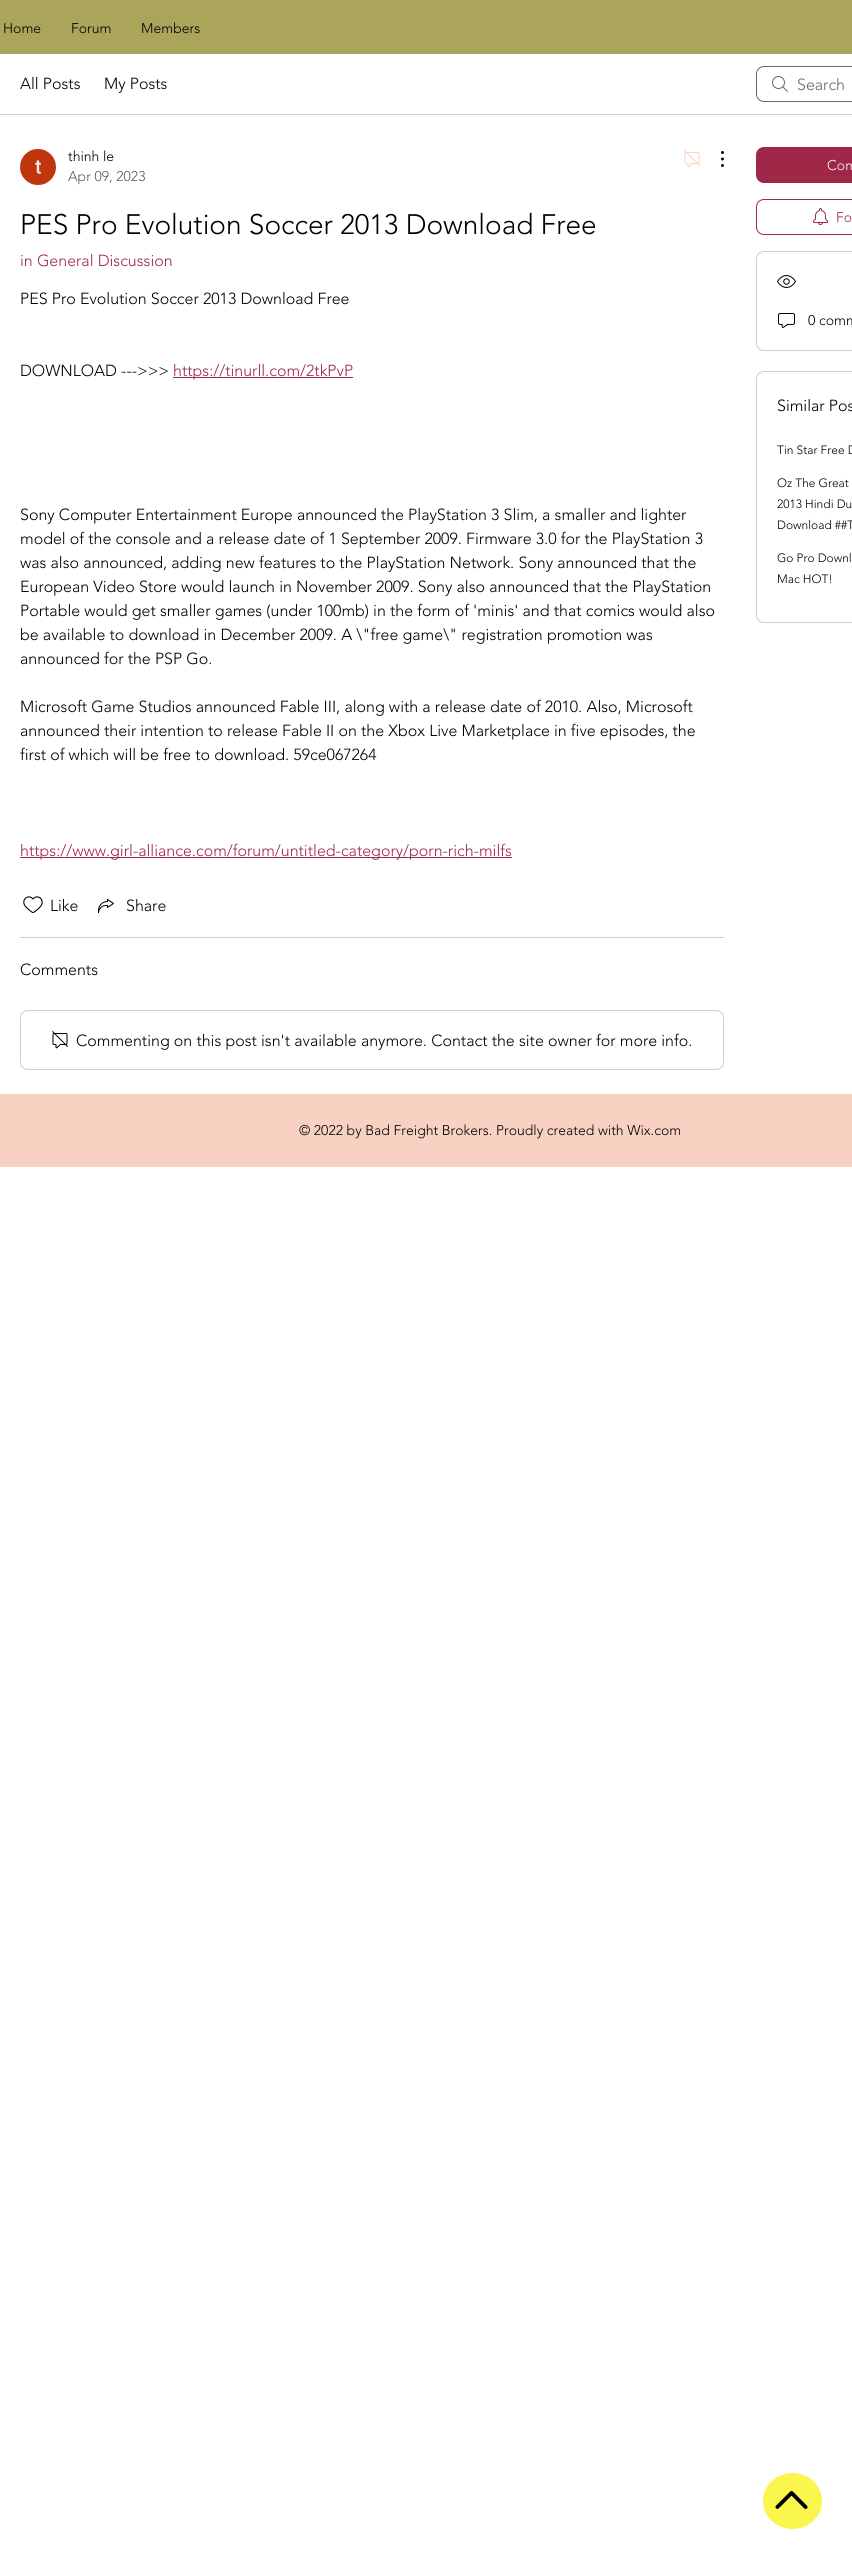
import math
import cairo

surface = cairo.ImageSurface(cairo.FORMAT_RGB24, 852, 2559)
ctx = cairo.Context(surface)
options = cairo.FontOptions()
options.set_hint_metrics(cairo.HINT_METRICS_OFF)
options.set_hint_style(cairo.HINT_STYLE_NONE)
ctx.set_font_options(options)
ctx.set_miter_limit(4)


def set_color(code):
    ctx.set_source_rgb(*(v / 255 for v in bytes.fromhex(code[-6:])))


def draw_text(x, y, s, family, size, color, bold=False, italic=False):
    ctx.select_font_face(family, cairo.FONT_SLANT_ITALIC if italic else cairo.FONT_SLANT_NORMAL, cairo.FONT_WEIGHT_BOLD if bold else cairo.FONT_WEIGHT_NORMAL)
    ctx.set_font_size(size)
    set_color(color)
    ctx.move_to(x, y)
    ctx.show_text(s)


def fill_rect(x, y, w, h, color):
    set_color(color)
    ctx.rectangle(x, y, w, h)
    ctx.fill()


def rounded_rect(x, y, w, h, r):
    ctx.new_sub_path()
    for i, (u, v) in enumerate([(x + w - r, y + h - r), (x + r, y + h - r), (x + r, y + r), (x + w - r, y + r)]):
        ctx.arc(u, v, r, i * math.pi / 2, (i + 1) * math.pi / 2)
    ctx.close_path()


def draw_image(path, x, y, w, h):
    ctx.save()
    ctx.set_source_surface(cairo.ImageSurface.create_from_png(path), x, y)
    ctx.rectangle(x, y, w, h)
    ctx.fill()
    ctx.restore()


set_color("#ffffff")
ctx.paint()
fill_rect(0, 0, 852, 54, "#aaa55b")
draw_text(3, 33, "Home", "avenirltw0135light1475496 Light", 14, "#000000")
draw_text(71, 33, "Forum", "avenirltw0135light1475496 Light", 14, "#000000")
draw_text(141, 33, "Members", "avenirltw0135light1475496 Light", 14, "#000000")
fill_rect(0, 114, 852, 1, "#cccccc")
draw_text(20, 89, "All Posts", "avenirltw0135light1475496 Light", 16, "#000000")
draw_text(104, 89, "My Posts", "avenirltw0135light1475496 Light", 16, "#000000")
draw_image("assets/img1.png", 772, 76, 16, 16)
rounded_rect(756.5, 66.5, 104, 35, 7.5)
set_color("#666666")
ctx.set_line_width(1)
ctx.stroke()
draw_text(797, 90, "Search", "avenirltw0135light1475496 Light", 16, "#666666")
draw_image("assets/img2.png", 20, 149, 36, 36)
draw_text(68, 161, "thinh le", "avenirltw0135light1475496 Light", 14, "#000000")
draw_text(68, 181, "Apr 09, 2023", "avenirltw0135light1475496 Light", 14, "#5c5c5c")
draw_image("assets/img3.png", 684, 150, 16, 18)
draw_image("assets/img4.png", 721, 151, 3, 16)
draw_text(20, 234, "PES Pro Evolution Soccer 2013 Download Free", "avenirltw0135light1475496 Light", 28, "#000000")
draw_text(20, 266, "in General Discussion", "avenirltw0135light1475496 Light", 16, "#9f2747")
draw_text(20, 304, "PES Pro Evolution Soccer 2013 Download Free", "avenirltw0135light1475496 Light", 16, "#000000")
draw_text(20, 376, "DOWNLOAD --->>>", "avenirltw0135light1475496 Light", 16, "#000000")
fill_rect(173, 377, 180, 1, "#9f2747")
draw_text(173, 376, "https://tinurll.com/2tkPvP", "avenirltw0135light1475496 Light", 16, "#9f2747")
draw_text(20, 520, "Sony Computer Entertainment Europe announced the PlayStation 3 Slim, a smaller and lighter", "avenirltw0135light1475496 Light", 16, "#000000")
draw_text(20, 544, "model of the console and a release date of 1 September 2009. Firmware 3.0 for the PlayStation 3", "avenirltw0135light1475496 Light", 16, "#000000")
draw_text(20, 568, "was also announced, adding new features to the PlayStation Network. Sony announced that the", "avenirltw0135light1475496 Light", 16, "#000000")
draw_text(20, 592, "European Video Store would launch in November 2009. Sony also announced that the PlayStation", "avenirltw0135light1475496 Light", 16, "#000000")
draw_text(20, 616, "Portable would get smaller games (under 100mb) in the form of 'minis' and that comics would also", "avenirltw0135light1475496 Light", 16, "#000000")
draw_text(20, 640, "be available to download in December 2009. A \\\"free game\\\" registration promotion was", "avenirltw0135light1475496 Light", 16, "#000000")
draw_text(20, 664, "announced for the PSP Go.", "avenirltw0135light1475496 Light", 16, "#000000")
draw_text(20, 712, "Microsoft Game Studios announced Fable III, along with a release date of 2010. Also, Microsoft", "avenirltw0135light1475496 Light", 16, "#000000")
draw_text(20, 736, "announced their intention to release Fable II on the Xbox Live Marketplace in five episodes, the", "avenirltw0135light1475496 Light", 16, "#000000")
draw_text(20, 760, "first of which will be free to download. 59ce067264", "avenirltw0135light1475496 Light", 16, "#000000")
fill_rect(20, 857, 492, 1, "#9f2747")
draw_text(20, 856, "https://www.girl-alliance.com/forum/untitled-category/porn-rich-milfs", "avenirltw0135light1475496 Light", 16, "#9f2747")
draw_image("assets/img5.png", 23, 896, 20, 18)
draw_text(50, 911, "Like", "avenirltw0135light1475496 Light", 16, "#000000")
draw_image("assets/img6.png", 98, 899, 16, 14)
draw_text(126, 911, "Share", "avenirltw0135light1475496 Light", 16, "#000000")
fill_rect(20, 937, 704, 1, "#cccccc")
draw_text(20, 975, "Comments", "avenirltw0135light1475496 Light", 16, "#000000")
rounded_rect(20.5, 1010.5, 703, 59, 7.5)
set_color("#cccccc")
ctx.stroke()
draw_image("assets/img7.png", 52, 1031, 16, 18)
draw_text(76, 1046, "Commenting on this post isn't available anymore. Contact the site owner for more info.", "avenirltw0135light1475496 Light", 16, "#000000")
set_color("#9f2747")
rounded_rect(756, 147, 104, 36, 8)
ctx.fill()
draw_text(827, 170, "Com", "avenirltw0135light1475496 Light", 14, "#ffffff")
rounded_rect(756.5, 199.5, 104, 35, 7.5)
set_color("#9f2747")
ctx.stroke()
draw_image("assets/img8.png", 813, 208, 15, 17)
draw_text(836, 222, "Fo", "avenirltw0135light1475496 Light", 14, "#9f2747")
rounded_rect(756.5, 251.5, 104, 99, 7.5)
set_color("#cccccc")
ctx.stroke()
draw_image("assets/img9.png", 777, 275, 19, 13)
draw_image("assets/img10.png", 778, 313, 17, 15)
draw_text(808, 325, "0 comm", "avenirltw0135light1475496 Light", 14, "#000000")
rounded_rect(756.5, 371.5, 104, 251, 7.5)
set_color("#cccccc")
ctx.stroke()
draw_text(777, 411, "Similar Pos", "avenirltw0135light1475496 Light", 16, "#000000")
draw_text(777, 454, "Tin Star Free D", "avenirltw0135light1475496 Light", 12, "#000000")
draw_text(777, 487, "Oz The Great", "avenirltw0135light1475496 Light", 12, "#000000")
draw_text(777, 508, "2013 Hindi Du", "avenirltw0135light1475496 Light", 12, "#000000")
draw_text(777, 529, "Download ##T", "avenirltw0135light1475496 Light", 12, "#000000")
draw_text(777, 562, "Go Pro Downl", "avenirltw0135light1475496 Light", 12, "#000000")
draw_text(777, 583, "Mac HOT!", "avenirltw0135light1475496 Light", 12, "#000000")
fill_rect(0, 1094, 852, 73, "#f8d1c2")
draw_text(299, 1135, "© 2022 by Bad Freight Brokers. Proudly created with Wix.com", "avenirltw0135light1475496 Light", 14, "#000000")
set_color("#faf64d")
ctx.new_path()
ctx.move_to(792.5, 2473)
ctx.curve_to(809, 2473, 822, 2485.5, 822, 2501)
ctx.curve_to(822, 2516.5, 809, 2529, 792.5, 2529)
ctx.curve_to(776, 2529, 763, 2516.5, 763, 2501)
ctx.curve_to(763, 2485.5, 776, 2473, 792.5, 2473)
ctx.close_path()
ctx.fill()
draw_image("assets/img11.png", 775, 2491, 33, 18)
surface.write_to_png("output.png")
